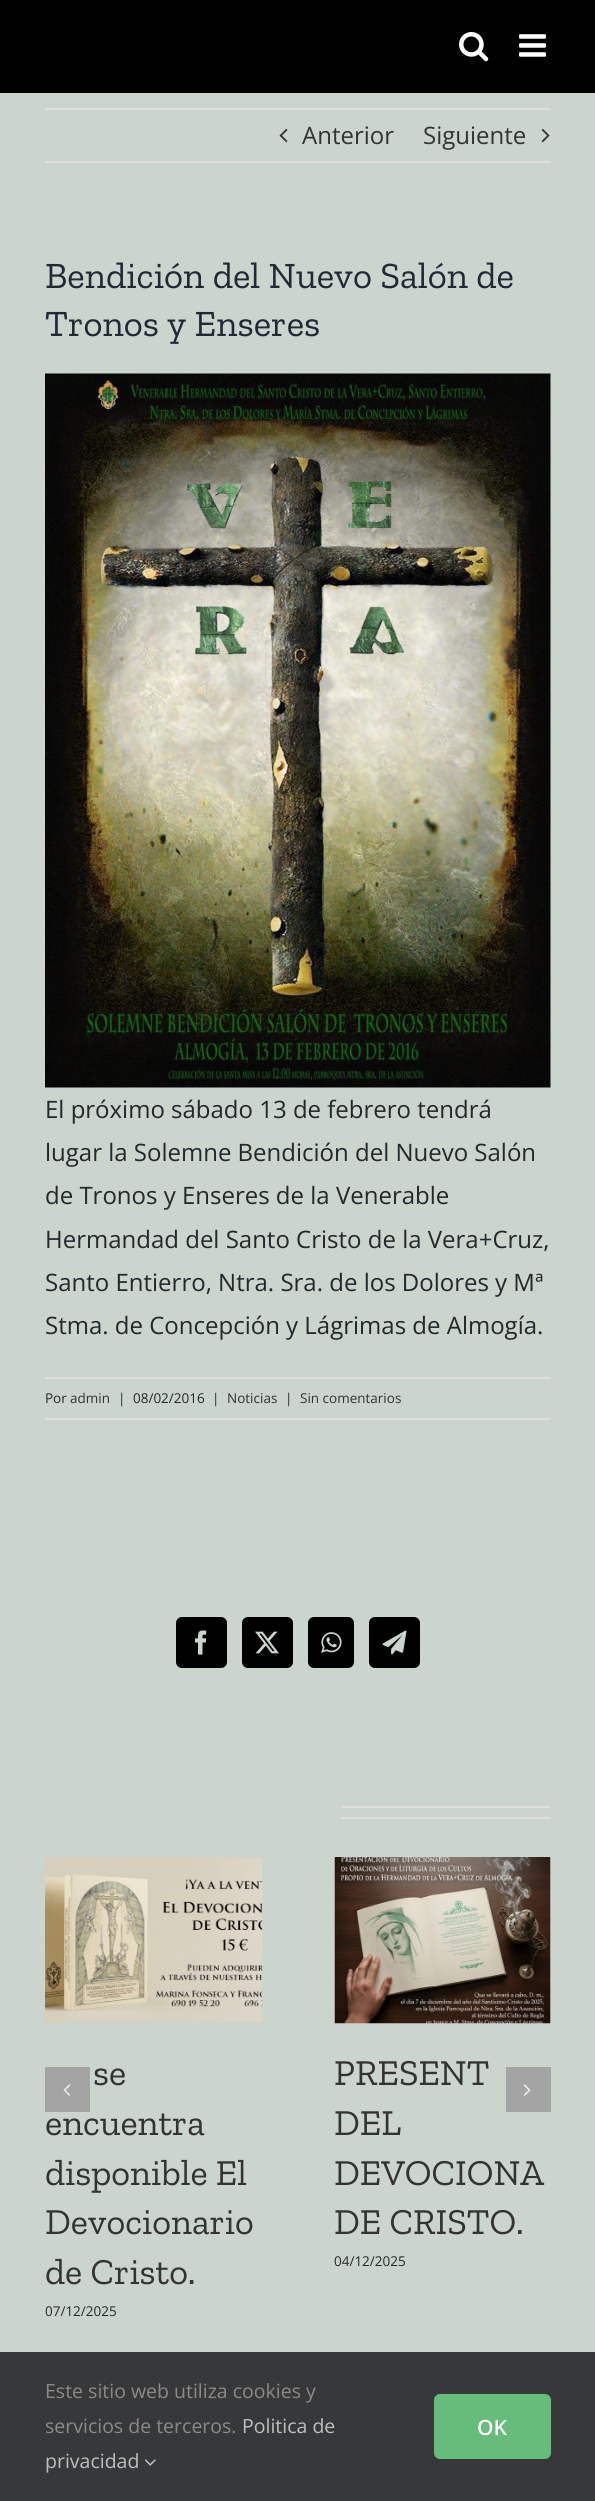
import math
import cairo

surface = cairo.ImageSurface(cairo.FORMAT_RGB24, 595, 2501)
ctx = cairo.Context(surface)
options = cairo.FontOptions()
options.set_hint_metrics(cairo.HINT_METRICS_OFF)
options.set_hint_style(cairo.HINT_STYLE_NONE)
ctx.set_font_options(options)
ctx.set_miter_limit(4)


def set_color(code):
    ctx.set_source_rgb(*(v / 255 for v in bytes.fromhex(code[-6:])))


def draw_text(x, y, s, family, size, color, bold=False, italic=False):
    ctx.select_font_face(family, cairo.FONT_SLANT_ITALIC if italic else cairo.FONT_SLANT_NORMAL, cairo.FONT_WEIGHT_BOLD if bold else cairo.FONT_WEIGHT_NORMAL)
    ctx.set_font_size(size)
    set_color(color)
    ctx.move_to(x, y)
    ctx.show_text(s)


def fill_rect(x, y, w, h, color):
    set_color(color)
    ctx.rectangle(x, y, w, h)
    ctx.fill()


def rounded_rect(x, y, w, h, r):
    ctx.new_sub_path()
    for i, (u, v) in enumerate([(x + w - r, y + h - r), (x + r, y + h - r), (x + r, y + r), (x + w - r, y + r)]):
        ctx.arc(u, v, r, i * math.pi / 2, (i + 1) * math.pi / 2)
    ctx.close_path()


def draw_image(path, x, y, w, h):
    ctx.save()
    ctx.set_source_surface(cairo.ImageSurface.create_from_png(path), x, y)
    ctx.rectangle(x, y, w, h)
    ctx.fill()
    ctx.restore()


set_color("#cbd4cd")
ctx.paint()
fill_rect(0, 0, 595, 93, "#000000")
draw_image("assets/img1.png", 459, 32, 30, 30)
draw_image("assets/img2.png", 519, 34, 27, 23)
fill_rect(45, 108, 506, 2, "#e0dede")
fill_rect(45, 161, 506, 2, "#e0dede")
draw_image("assets/img3.png", 279, 128, 9, 15)
draw_text(302, 144, "Anterior", "Open Sans", 24, "#333333")
draw_text(423, 144, "Siguiente", "Open Sans", 24, "#333333")
draw_image("assets/img4.png", 541, 128, 9, 15)
draw_text(45, 288, "Bendición del Nuevo Salón de", "Zilla Slab", 37, "#212934")
draw_text(45, 336, "Tronos y Enseres", "Zilla Slab", 37, "#212934")
draw_image("assets/img5.png", 45, 373, 506, 715)
draw_text(45, 1118, "El próximo sábado 13 de febrero tendrá", "Open Sans", 24, "#23282d")
draw_text(45, 1161, "lugar la Solemne Bendición del Nuevo Salón", "Open Sans", 24, "#23282d")
draw_text(45, 1204, "de Tronos y Enseres de la Venerable", "Open Sans", 24, "#23282d")
draw_text(45, 1248, "Hermandad del Santo Cristo de la Vera+Cruz,", "Open Sans", 24, "#23282d")
draw_text(45, 1291, "Santo Entierro, Ntra. Sra. de los Dolores y Mª", "Open Sans", 24, "#23282d")
draw_text(45, 1334, "Stma. de Concepción y Lágrimas de Almogía.", "Open Sans", 24, "#23282d")
fill_rect(45, 1377, 506, 2, "#e0dede")
fill_rect(45, 1418, 506, 2, "#e0dede")
draw_text(45, 1403, "Por", "Open Sans", 13.5, "#23282d")
draw_text(70, 1403, "admin", "Open Sans", 13.5, "#333333")
draw_text(118, 1403, "|", "Open Sans", 13.5, "#23282d")
draw_text(133, 1403, "08/02/2016", "Open Sans", 13.5, "#23282d")
draw_text(212, 1403, "|", "Open Sans", 13.5, "#23282d")
draw_text(227, 1403, "Noticias", "Open Sans", 13.5, "#333333")
draw_text(285, 1403, "|", "Open Sans", 13.5, "#23282d")
draw_text(300, 1403, "Sin comentarios", "Open Sans", 13.5, "#333333")
set_color("#000000")
rounded_rect(177, 1618, 49, 49, 5)
ctx.fill_preserve()
ctx.stroke()
draw_image("assets/img6.png", 195, 1630, 12, 25)
rounded_rect(243, 1618, 49, 49, 5)
ctx.fill_preserve()
ctx.stroke()
draw_image("assets/img7.png", 255, 1631, 24, 23)
rounded_rect(309, 1618, 44, 49, 5)
ctx.fill_preserve()
ctx.stroke()
draw_image("assets/img8.png", 321, 1632, 21, 21)
rounded_rect(370, 1618, 49, 49, 5)
ctx.fill_preserve()
ctx.stroke()
draw_image("assets/img9.png", 382, 1630, 25, 25)
fill_rect(341, 1806, 210, 2, "#e0dede")
fill_rect(341, 1817, 210, 2, "#e0dede")
draw_image("assets/img10.png", 45, 1857, 218, 167)
draw_text(93, 2085, "se", "Zilla Slab", 36.5, "#333333")
draw_text(45, 2135, "encuentra", "Zilla Slab", 36.5, "#333333")
draw_text(45, 2185, "disponible El", "Zilla Slab", 36.5, "#333333")
draw_text(45, 2234, "Devocionario", "Zilla Slab", 36.5, "#333333")
draw_text(45, 2284, "de Cristo.", "Zilla Slab", 36.5, "#333333")
draw_text(45, 2316, "07/12/2025", "Open Sans", 13.5, "#23282d")
draw_image("assets/img11.png", 334, 1857, 217, 167)
draw_text(334, 2085, "PRESENT", "Zilla Slab", 36.5, "#333333")
draw_text(334, 2135, "DEL", "Zilla Slab", 36.5, "#333333")
draw_text(334, 2185, "DEVOCIONA", "Zilla Slab", 36.5, "#333333")
draw_text(334, 2234, "DE CRISTO.", "Zilla Slab", 36.5, "#333333")
draw_text(334, 2266, "04/12/2025", "Open Sans", 13.5, "#23282d")
ctx.set_source_rgba(0.6, 0.6, 0.6, 0.8)
ctx.rectangle(45, 2067, 45, 45)
ctx.fill()
draw_image("assets/img12.png", 63, 2084, 8, 12)
ctx.rectangle(506, 2067, 45, 45)
ctx.fill()
draw_image("assets/img13.png", 523, 2084, 8, 12)
fill_rect(0, 2352, 595, 149, "#363839")
draw_text(45, 2398, "Este sitio web utiliza cookies y", "Open Sans", 19.5, "#8c8989")
draw_text(45, 2433, "servicios de terceros.", "Open Sans", 19.5, "#8c8989")
draw_text(242, 2433, "Politica de", "Open Sans", 19.5, "#bfbfbf")
draw_text(45, 2468, "privacidad", "Open Sans", 19.5, "#bfbfbf")
draw_image("assets/img14.png", 144, 2459, 12, 7)
set_color("#65bc7b")
rounded_rect(434, 2394, 117, 65, 6)
ctx.fill()
draw_text(477, 2435, "OK", "Open Sans SemiBold", 21, "#ffffff")
surface.write_to_png("output.png")
